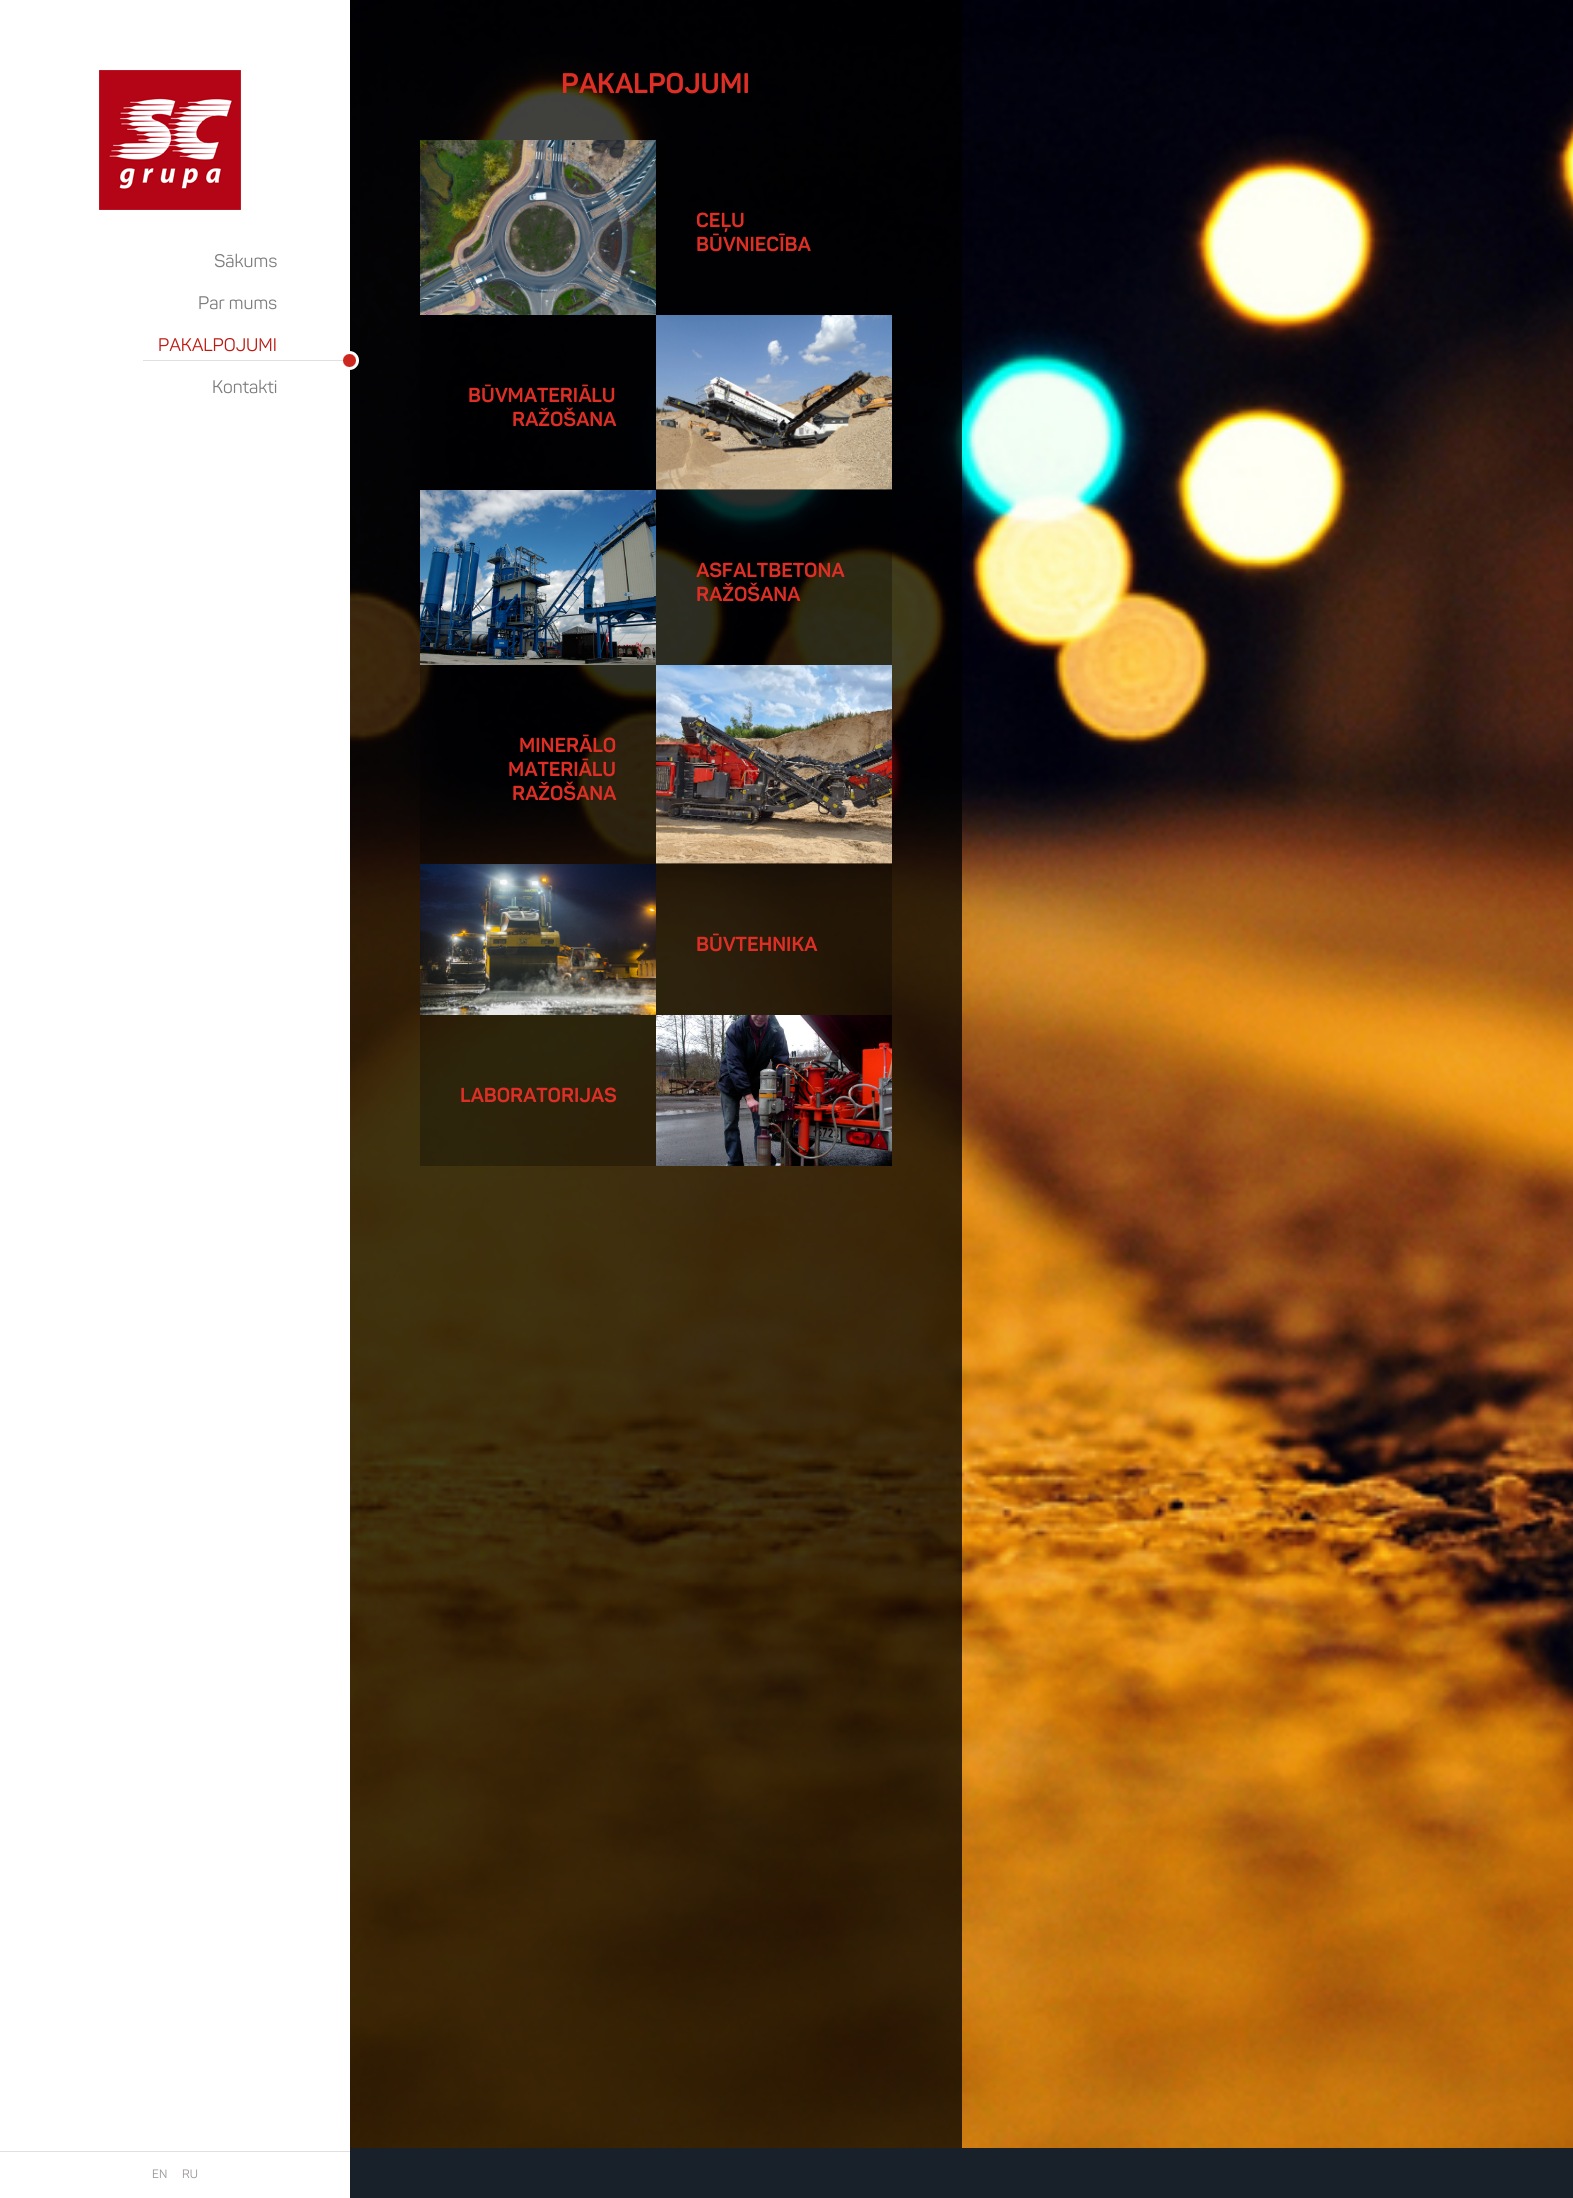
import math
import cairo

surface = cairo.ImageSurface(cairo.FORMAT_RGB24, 1573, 2198)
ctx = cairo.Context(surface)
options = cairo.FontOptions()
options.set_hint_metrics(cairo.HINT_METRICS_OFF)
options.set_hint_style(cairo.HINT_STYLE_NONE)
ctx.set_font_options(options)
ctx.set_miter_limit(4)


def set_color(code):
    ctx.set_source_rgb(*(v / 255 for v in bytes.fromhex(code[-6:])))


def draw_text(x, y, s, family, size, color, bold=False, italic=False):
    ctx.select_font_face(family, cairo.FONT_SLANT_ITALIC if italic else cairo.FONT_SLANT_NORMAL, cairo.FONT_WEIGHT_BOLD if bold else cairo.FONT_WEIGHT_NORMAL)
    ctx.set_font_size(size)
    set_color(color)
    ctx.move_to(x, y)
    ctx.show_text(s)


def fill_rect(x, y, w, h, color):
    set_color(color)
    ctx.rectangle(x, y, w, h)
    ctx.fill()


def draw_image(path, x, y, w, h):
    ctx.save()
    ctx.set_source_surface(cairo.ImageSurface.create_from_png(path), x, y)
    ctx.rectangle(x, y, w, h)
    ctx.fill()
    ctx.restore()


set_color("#ffffff")
ctx.paint()
draw_image("assets/img1.png", 99, 70, 142, 140)
draw_text(214, 267, "Sākums", "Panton", 18, "#7d7d7d")
draw_text(198, 309, "Par mums", "Panton", 18, "#7d7d7d")
draw_text(158, 351, "PAKALPOJUMI", "Panton", 18, "#bc1b13")
fill_rect(143, 360, 204, 1, "#e0e0e0")
draw_image("assets/img3.png", 350, 0, 1223, 2148)
ctx.set_source_rgba(0, 0, 0, 0.75)
ctx.rectangle(350, 0, 612, 2148)
ctx.fill()
draw_image("assets/img2.png", 343, 351, 16, 19)
draw_text(212, 393, "Kontakti", "Panton", 18, "#7d7d7d")
fill_rect(0, 2151, 350, 1, "#e0e0e0")
draw_text(152, 2178, "EN", "Panton", 12, "#9a9494")
draw_text(182, 2178, "RU", "Panton", 12, "#9a9494")
draw_text(561, 93, "PAKALPOJUMI", "Panton", 28, "#de2f26", bold=True)
ctx.set_source_rgba(0, 0, 0, 0.3)
ctx.rectangle(420, 140, 472, 1026)
ctx.fill()
draw_image("assets/img4.png", 420, 140, 236, 175)
draw_text(696, 227, "CEĻU", "Panton", 20, "#de2f26", bold=True)
draw_text(696, 251, "BŪVNIECĪBA", "Panton", 20, "#de2f26", bold=True)
draw_text(468, 402, "BŪVMATERIĀLU", "Panton", 20, "#de2f26", bold=True)
draw_text(512, 426, "RAŽOŠANA", "Panton", 20, "#de2f26", bold=True)
draw_image("assets/img5.png", 656, 315, 236, 175)
draw_image("assets/img6.png", 420, 490, 236, 175)
draw_text(696, 577, "ASFALTBETONA", "Panton", 20, "#de2f26", bold=True)
draw_text(696, 601, "RAŽOŠANA", "Panton", 20, "#de2f26", bold=True)
draw_text(519, 752, "MINERĀLO", "Panton", 20, "#de2f26", bold=True)
draw_text(508, 776, "MATERIĀLU", "Panton", 20, "#de2f26", bold=True)
draw_text(512, 800, "RAŽOŠANA", "Panton", 20, "#de2f26", bold=True)
draw_image("assets/img7.png", 656, 665, 236, 199)
draw_image("assets/img8.png", 420, 864, 236, 151)
draw_text(696, 951, "BŪVTEHNIKA", "Panton", 20, "#de2f26", bold=True)
draw_text(460, 1102, "LABORATORIJAS", "Panton", 20, "#de2f26", bold=True)
draw_image("assets/img9.png", 656, 1015, 236, 151)
fill_rect(350, 2148, 1223, 50, "#182129")
surface.write_to_png("output.png")
